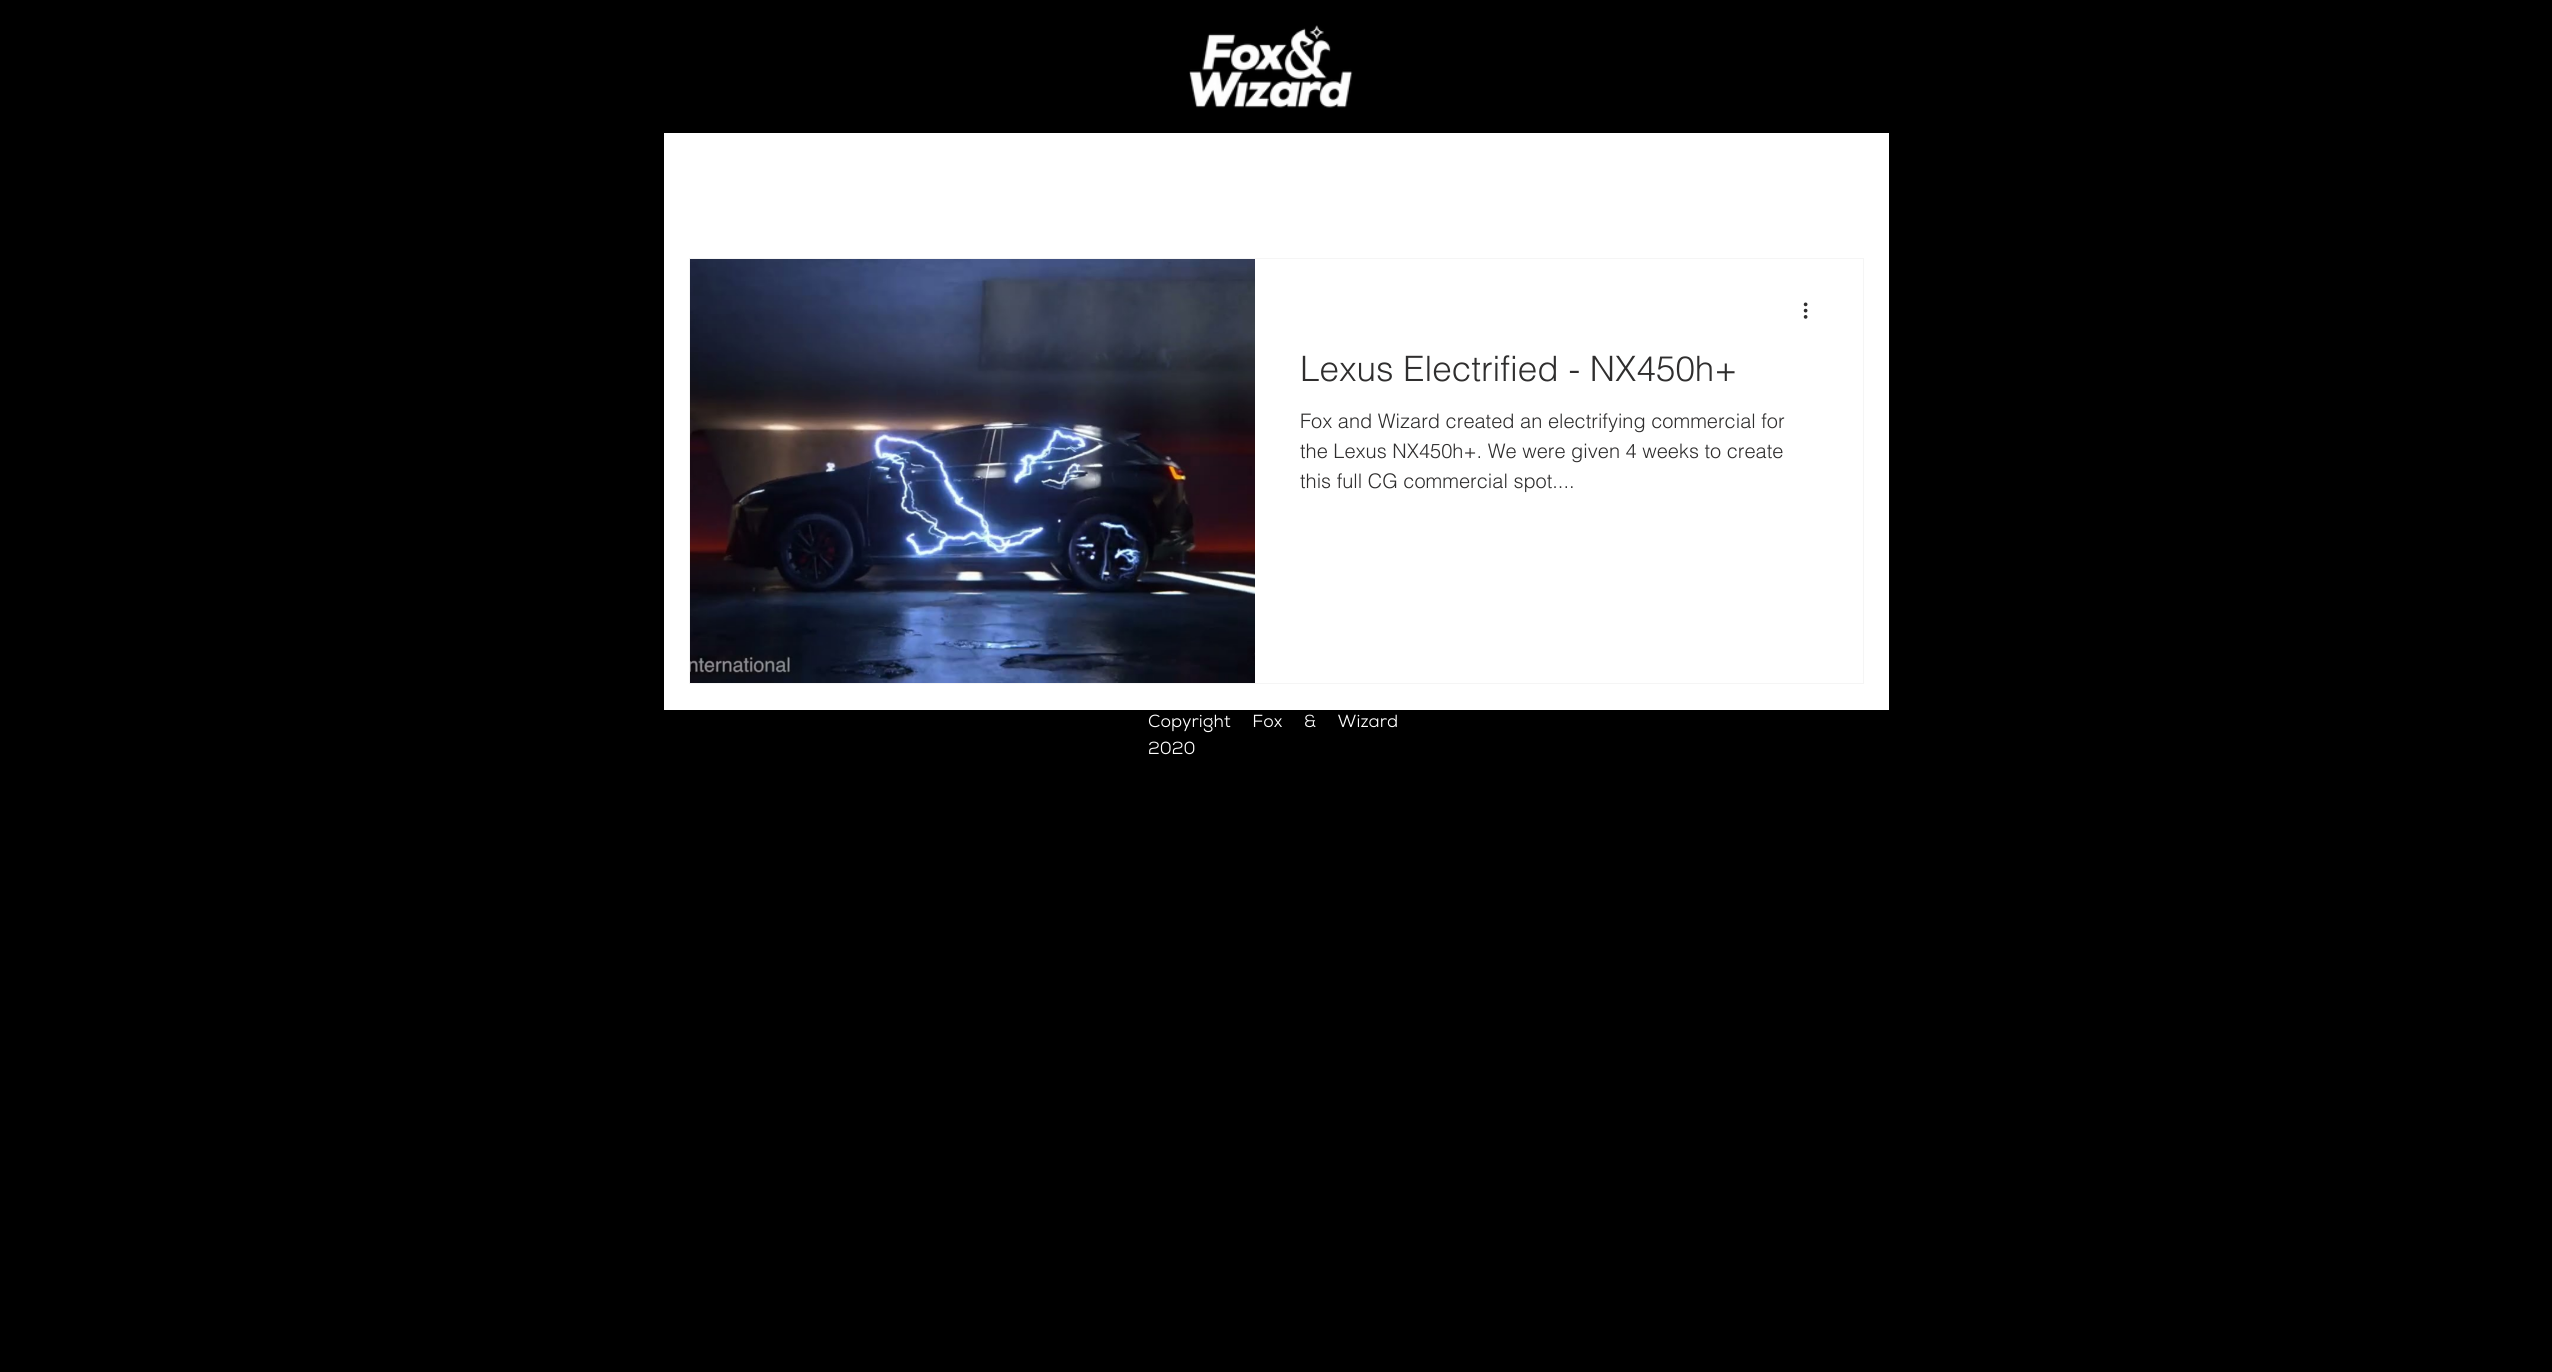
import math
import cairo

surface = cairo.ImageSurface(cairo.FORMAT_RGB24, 2552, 1372)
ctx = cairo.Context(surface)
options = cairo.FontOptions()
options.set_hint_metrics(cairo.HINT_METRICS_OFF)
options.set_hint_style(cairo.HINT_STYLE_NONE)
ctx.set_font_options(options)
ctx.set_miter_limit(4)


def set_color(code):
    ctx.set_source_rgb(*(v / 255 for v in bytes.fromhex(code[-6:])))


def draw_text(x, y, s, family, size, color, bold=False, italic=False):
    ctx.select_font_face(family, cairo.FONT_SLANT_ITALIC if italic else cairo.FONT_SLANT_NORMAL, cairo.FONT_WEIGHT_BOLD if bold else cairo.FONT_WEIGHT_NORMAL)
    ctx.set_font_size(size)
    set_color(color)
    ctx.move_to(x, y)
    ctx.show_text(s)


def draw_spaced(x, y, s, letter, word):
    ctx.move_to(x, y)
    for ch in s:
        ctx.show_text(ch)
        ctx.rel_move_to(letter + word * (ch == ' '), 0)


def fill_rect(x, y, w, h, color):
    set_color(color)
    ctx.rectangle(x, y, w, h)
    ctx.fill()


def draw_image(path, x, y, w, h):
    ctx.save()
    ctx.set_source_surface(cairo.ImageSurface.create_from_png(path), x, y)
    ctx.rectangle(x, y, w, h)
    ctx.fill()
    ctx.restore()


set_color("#000000")
ctx.paint()
draw_image("assets/img1.png", 1189, 25, 164, 83)
fill_rect(664, 133, 1225, 577, "#ffffff")
ctx.rectangle(689.5, 258.5, 1174, 425)
set_color("#f5f5f5")
ctx.set_line_width(1)
ctx.stroke()
draw_image("assets/img2.png", 690, 259, 565, 424)
draw_image("assets/img3.png", 1803, 302, 5, 17)
draw_text(1300, 381, "Lexus Electrified - NX450h+", "helvetica Light", 35, "#2f2e2e")
draw_text(1300, 428, "Fox and Wizard created an electrifying commercial for", "helvetica Light", 20, "#2f2e2e")
draw_text(1300, 458, "the Lexus NX450h+. We were given 4 weeks to create", "helvetica Light", 20, "#2f2e2e")
draw_text(1300, 488, "this full CG commercial spot....", "helvetica Light", 20, "#2f2e2e")
ctx.select_font_face("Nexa")
ctx.set_font_size(17.5)
set_color("#ffffff")
draw_spaced(1148, 727, "Copyright Fox & Wizard", 0, 17)
draw_text(1148, 754, "2020", "Nexa", 17.5, "#ffffff")
surface.write_to_png("output.png")
